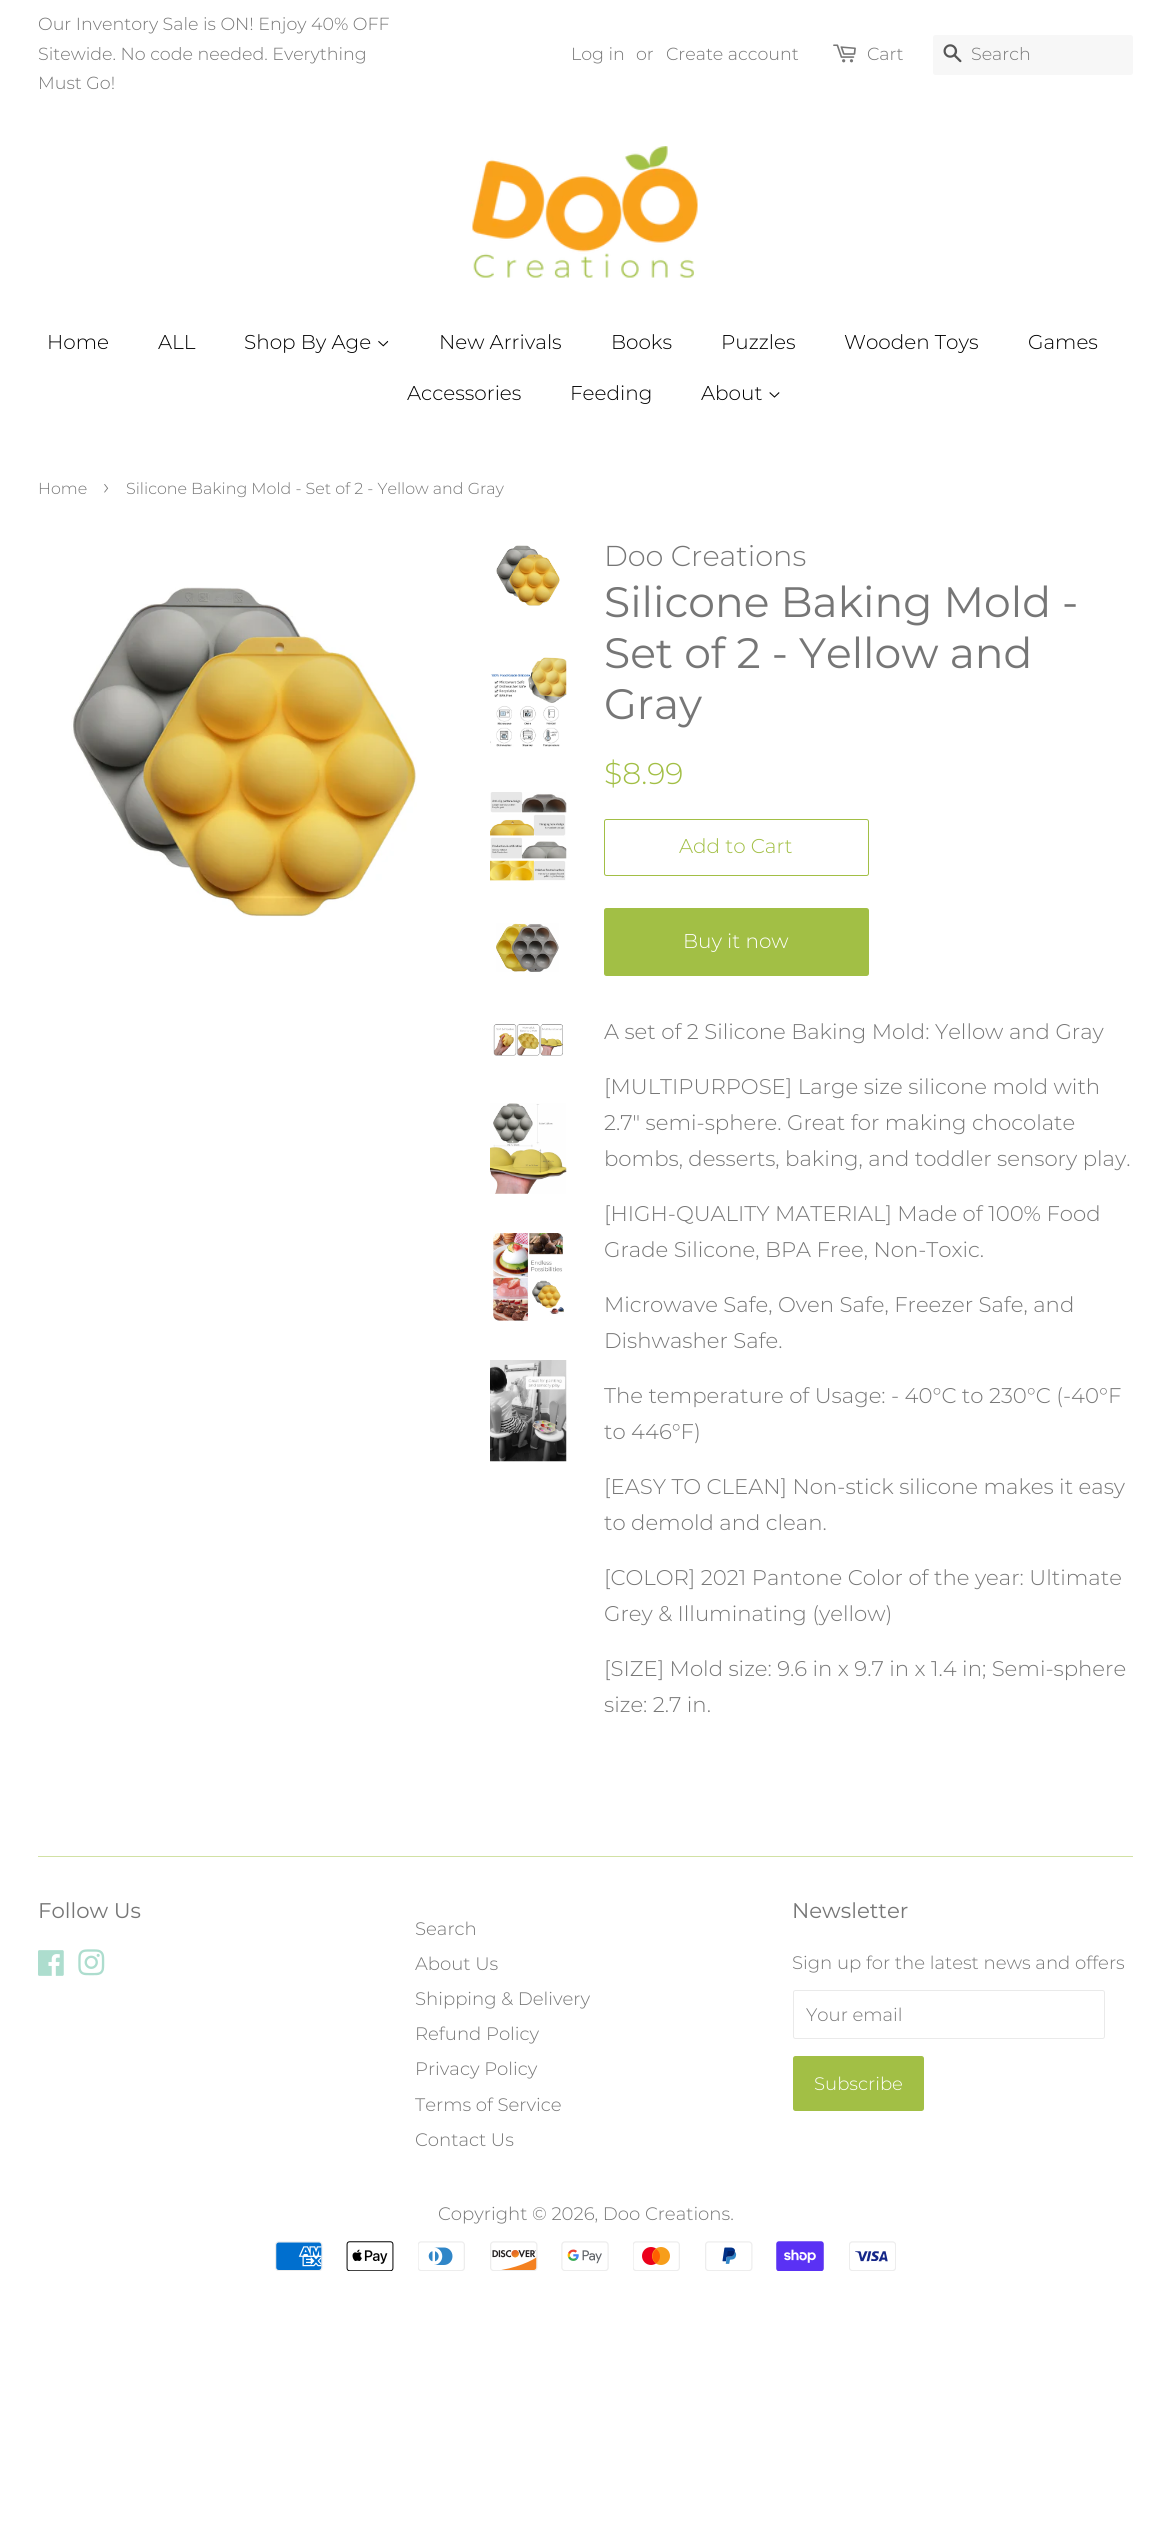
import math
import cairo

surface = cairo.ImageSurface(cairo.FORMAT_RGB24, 1170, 2539)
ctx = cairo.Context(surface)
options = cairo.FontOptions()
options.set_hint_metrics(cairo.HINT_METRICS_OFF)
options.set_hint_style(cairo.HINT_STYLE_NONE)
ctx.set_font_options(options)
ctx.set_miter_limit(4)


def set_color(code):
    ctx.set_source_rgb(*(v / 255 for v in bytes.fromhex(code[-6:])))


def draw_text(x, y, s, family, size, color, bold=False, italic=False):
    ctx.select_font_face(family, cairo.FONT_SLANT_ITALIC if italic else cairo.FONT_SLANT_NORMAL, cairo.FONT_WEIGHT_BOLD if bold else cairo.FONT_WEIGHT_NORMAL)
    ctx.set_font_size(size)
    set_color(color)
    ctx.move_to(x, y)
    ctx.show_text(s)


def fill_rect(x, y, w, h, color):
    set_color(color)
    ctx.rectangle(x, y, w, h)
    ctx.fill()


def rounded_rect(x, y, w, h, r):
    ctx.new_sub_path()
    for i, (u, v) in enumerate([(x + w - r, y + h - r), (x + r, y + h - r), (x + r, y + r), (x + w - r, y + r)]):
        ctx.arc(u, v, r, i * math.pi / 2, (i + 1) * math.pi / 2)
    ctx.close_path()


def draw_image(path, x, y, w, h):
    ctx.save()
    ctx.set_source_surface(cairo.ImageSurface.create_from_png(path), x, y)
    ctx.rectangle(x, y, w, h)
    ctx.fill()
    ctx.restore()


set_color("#ffffff")
ctx.paint()
draw_text(38, 30, "Our Inventory Sale is ON! Enjoy 40% OFF", "Montserrat Light", 17.5, "#767676")
draw_text(38, 60, "Sitewide. No code needed. Everything", "Montserrat Light", 17.5, "#767676")
draw_text(38, 89, "Must Go!", "Montserrat Light", 17.5, "#767676")
draw_text(571, 60, "Log in", "Montserrat Light", 17.5, "#767676")
draw_text(636, 60, "or", "Montserrat Light", 17.5, "#767676")
draw_text(666, 60, "Create account", "Montserrat Light", 17.5, "#767676")
draw_image("assets/img1.png", 833, 44, 23, 19)
draw_text(867, 60, "Cart", "Montserrat Light", 17.5, "#767676")
set_color("#f7f7f7")
rounded_rect(933, 35, 200, 40, 2.5)
ctx.fill()
draw_image("assets/img2.png", 943, 44, 19, 19)
draw_text(971, 60, "Search", "Montserrat Light", 17.5, "#767676")
draw_image("assets/img3.png", 472, 146, 226, 132)
draw_text(47, 349, "Home", "Montserrat Light", 20, "#000000")
draw_text(158, 349, "ALL", "Montserrat Light", 20, "#000000")
draw_text(244, 349, "Shop By Age", "Montserrat Light", 20, "#000000")
draw_image("assets/img4.png", 378, 340, 11, 7)
draw_text(439, 349, "New Arrivals", "Montserrat Light", 20, "#000000")
draw_text(611, 349, "Books", "Montserrat Light", 20, "#000000")
draw_text(721, 349, "Puzzles", "Montserrat Light", 20, "#000000")
draw_text(844, 349, "Wooden Toys", "Montserrat Light", 20, "#000000")
draw_text(1028, 349, "Games", "Montserrat Light", 20, "#000000")
draw_text(407, 400, "Accessories", "Montserrat Light", 20, "#000000")
draw_text(570, 400, "Feeding", "Montserrat Light", 20, "#000000")
draw_text(701, 400, "About", "Montserrat Light", 20, "#000000")
draw_image("assets/img5.png", 769, 392, 11, 6)
draw_text(38, 494, "Home", "Montserrat Light", 15.9, "#767676")
draw_text(103, 494, "›", "Montserrat Light", 22, "#767676")
draw_text(126, 494, "Silicone Baking Mold - Set of 2 - Yellow and Gray", "Montserrat Light", 15.9, "#767676")
draw_image("assets/img6.png", 71, 587, 346, 330)
draw_image("assets/img7.png", 496, 545, 64, 61)
draw_image("assets/img8.png", 490, 657, 77, 90)
draw_image("assets/img9.png", 490, 792, 77, 89)
draw_image("assets/img10.png", 496, 923, 63, 49)
draw_image("assets/img11.png", 493, 1024, 70, 32)
draw_image("assets/img12.png", 490, 1103, 77, 91)
draw_image("assets/img13.png", 493, 1233, 71, 88)
draw_image("assets/img14.png", 490, 1360, 77, 102)
draw_text(604, 566, "Doo Creations", "Montserrat Light", 28.75, "#767676")
draw_text(604, 617, "Silicone Baking Mold -", "Montserrat", 42.5, "#767676")
draw_text(604, 668, "Set of 2 - Yellow and", "Montserrat", 42.5, "#767676")
draw_text(604, 719, "Gray", "Montserrat", 42.5, "#767676")
draw_text(604, 784, "$8.99", "Montserrat Light", 30, "#a2bf45")
rounded_rect(604.5, 819.5, 264, 56, 2)
ctx.set_line_width(1)
ctx.stroke()
draw_text(679, 853, "Add to Cart", "Montserrat Light", 20, "#a2bf45")
rounded_rect(604, 908, 265, 68, 2.5)
ctx.fill()
draw_text(683, 948, "Buy it now", "Montserrat Light", 20, "#ffffff")
draw_text(604, 1039, "A set of 2 Silicone Baking Mold: Yellow and Gray", "Montserrat Light", 21.25, "#767676")
draw_text(604, 1094, "[MULTIPURPOSE] Large size silicone mold with", "Montserrat Light", 21.25, "#767676")
draw_text(604, 1130, "2.7\" semi-sphere. Great for making chocolate", "Montserrat Light", 21.25, "#767676")
draw_text(604, 1166, "bombs, desserts, baking, and toddler sensory play.", "Montserrat Light", 21.25, "#767676")
draw_text(604, 1221, "[HIGH-QUALITY MATERIAL] Made of 100% Food", "Montserrat Light", 21.25, "#767676")
draw_text(604, 1257, "Grade Silicone, BPA Free, Non-Toxic.", "Montserrat Light", 21.25, "#767676")
draw_text(604, 1312, "Microwave Safe, Oven Safe, Freezer Safe, and", "Montserrat Light", 21.25, "#767676")
draw_text(604, 1348, "Dishwasher Safe.", "Montserrat Light", 21.25, "#767676")
draw_text(604, 1403, "The temperature of Usage: - 40°C to 230°C (-40°F", "Montserrat Light", 21.25, "#767676")
draw_text(604, 1439, "to 446°F)", "Montserrat Light", 21.25, "#767676")
draw_text(604, 1494, "[EASY TO CLEAN] Non-stick silicone makes it easy", "Montserrat Light", 21.25, "#767676")
draw_text(604, 1530, "to demold and clean.", "Montserrat Light", 21.25, "#767676")
draw_text(604, 1585, "[COLOR] 2021 Pantone Color of the year: Ultimate", "Montserrat Light", 21.25, "#767676")
draw_text(604, 1621, "Grey & Illuminating (yellow)", "Montserrat Light", 21.25, "#767676")
draw_text(604, 1676, "[SIZE] Mold size: 9.6 in x 9.7 in x 1.4 in; Semi-sphere", "Montserrat Light", 21.25, "#767676")
draw_text(604, 1712, "size: 2.7 in.", "Montserrat Light", 21.25, "#767676")
fill_rect(38, 1856, 1095, 1, "#d2e1a4")
draw_text(38, 1918, "Follow Us", "Montserrat", 21.25, "#767676")
draw_image("assets/img15.png", 38, 1950, 26, 26)
draw_image("assets/img16.png", 78, 1949, 27, 27)
draw_text(415, 1935, "Search", "Montserrat Light", 18.1, "#767676")
draw_text(415, 1970, "About Us", "Montserrat Light", 18.1, "#767676")
draw_text(415, 2005, "Shipping & Delivery", "Montserrat Light", 18.1, "#767676")
draw_text(415, 2040, "Refund Policy", "Montserrat Light", 18.1, "#767676")
draw_text(415, 2075, "Privacy Policy", "Montserrat Light", 18.1, "#767676")
draw_text(415, 2111, "Terms of Service", "Montserrat Light", 18.1, "#767676")
draw_text(415, 2146, "Contact Us", "Montserrat Light", 18.1, "#767676")
draw_text(792, 1918, "Newsletter", "Montserrat", 21.25, "#767676")
draw_text(792, 1969, "Sign up for the latest news and offers", "Montserrat Light", 18.1, "#767676")
rounded_rect(793.5, 1990.5, 311, 48, 2)
set_color("#eaeaea")
ctx.stroke()
draw_text(806, 2021, "Your email", "Montserrat Light", 18.1, "#767676")
set_color("#a2bf45")
rounded_rect(793, 2056, 131, 55, 2.5)
ctx.fill()
draw_text(814, 2090, "Subscribe", "Montserrat Light", 18.1, "#ffffff")
draw_text(438, 2220, "Copyright © 2026, Doo Creations.", "Montserrat Light", 18.1, "#767676")
draw_image("assets/img17.png", 275, 2241, 48, 30)
draw_image("assets/img18.png", 346, 2241, 48, 30)
draw_image("assets/img19.png", 418, 2241, 47, 30)
draw_image("assets/img20.png", 490, 2241, 48, 30)
draw_image("assets/img21.png", 561, 2241, 48, 30)
draw_image("assets/img22.png", 633, 2241, 47, 30)
draw_image("assets/img23.png", 705, 2241, 48, 30)
draw_image("assets/img24.png", 776, 2241, 48, 30)
draw_image("assets/img25.png", 849, 2241, 47, 30)
surface.write_to_png("output.png")
